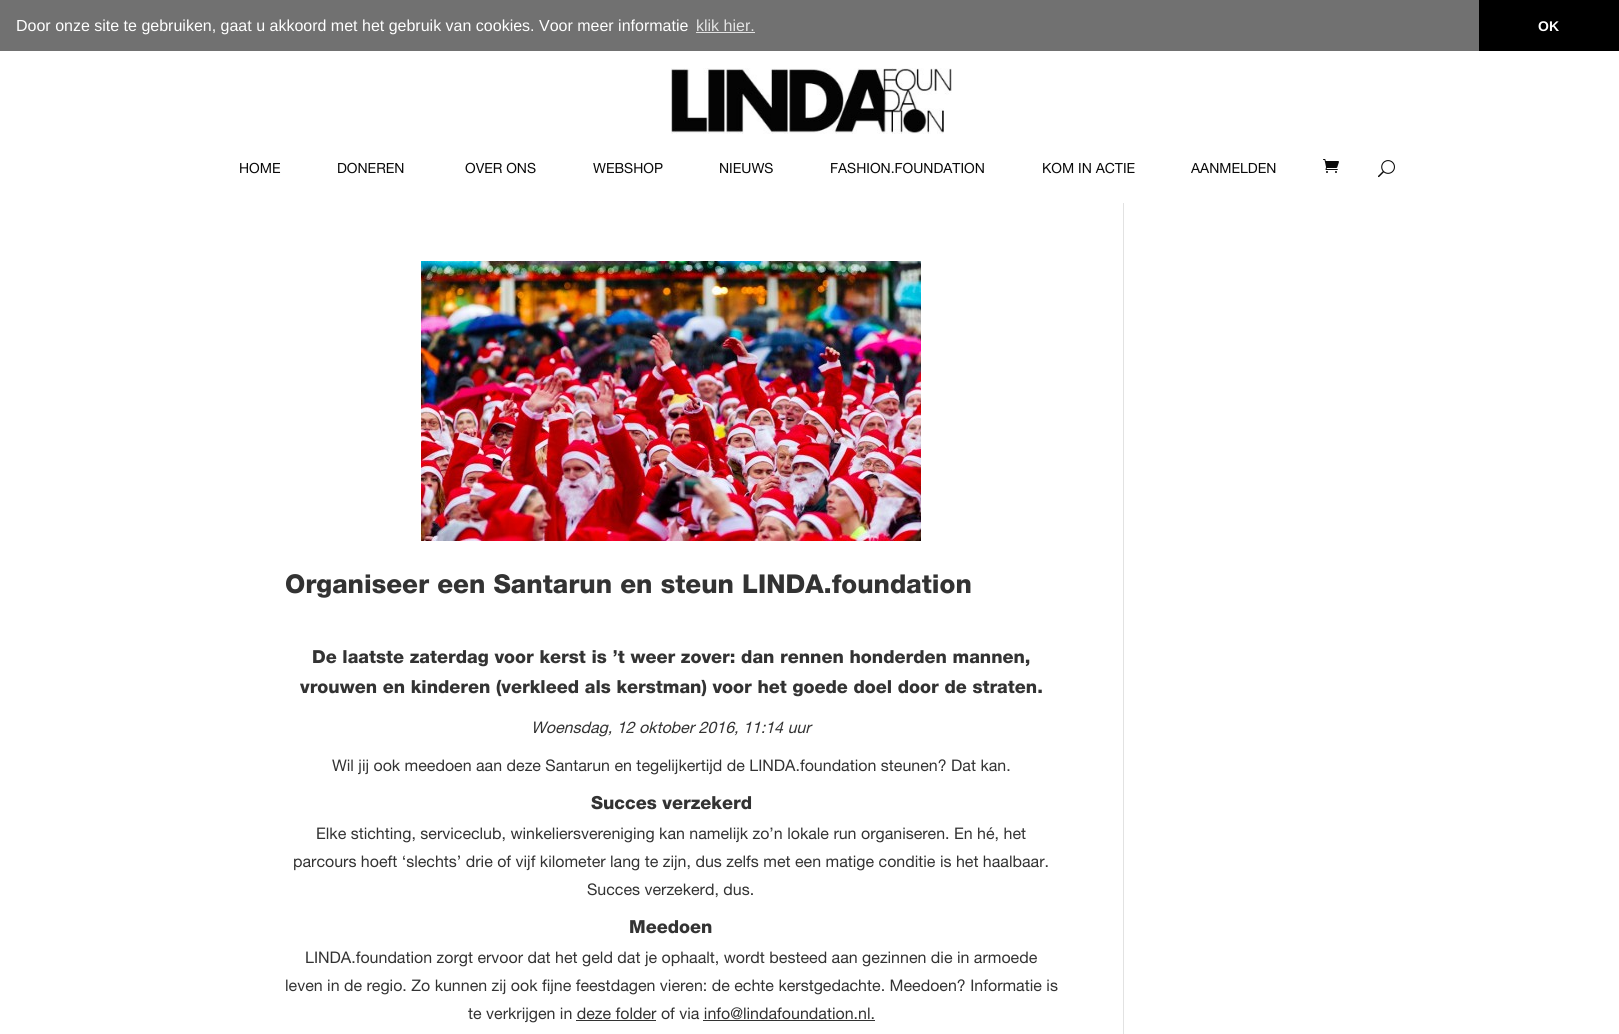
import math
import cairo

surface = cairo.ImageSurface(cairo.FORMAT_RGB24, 1619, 1034)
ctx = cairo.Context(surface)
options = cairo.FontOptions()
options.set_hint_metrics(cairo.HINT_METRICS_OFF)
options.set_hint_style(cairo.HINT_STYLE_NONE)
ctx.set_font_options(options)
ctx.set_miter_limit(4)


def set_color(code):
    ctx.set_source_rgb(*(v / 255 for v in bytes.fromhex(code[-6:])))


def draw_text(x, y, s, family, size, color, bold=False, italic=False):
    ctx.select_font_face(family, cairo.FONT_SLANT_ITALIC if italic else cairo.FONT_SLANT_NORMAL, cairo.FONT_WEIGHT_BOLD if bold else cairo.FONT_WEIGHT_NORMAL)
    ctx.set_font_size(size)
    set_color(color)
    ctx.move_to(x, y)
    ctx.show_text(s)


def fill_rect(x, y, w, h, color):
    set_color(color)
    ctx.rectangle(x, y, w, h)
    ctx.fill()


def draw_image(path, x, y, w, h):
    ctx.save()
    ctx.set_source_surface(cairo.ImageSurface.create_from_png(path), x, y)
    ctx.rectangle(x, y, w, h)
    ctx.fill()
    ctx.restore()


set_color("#ffffff")
ctx.paint()
fill_rect(0, 0, 1479, 51, "#717171")
draw_text(16, 31, "Door onze site te gebruiken, gaat u akkoord met het gebruik van cookies. Voor meer informatie", "Liberation Sans", 16, "#ffffff")
draw_text(696, 31, "klik hier.", "Liberation Sans", 16, "#e3e3e3")
fill_rect(696, 32, 59, 1, "#e3e3e3")
fill_rect(1479, 0, 140, 51, "#000000")
draw_text(1538, 31, "OK", "Liberation Sans", 14, "#ffffff", bold=True)
draw_image("assets/img1.png", 671, 68, 281, 66)
draw_text(239, 173, "HOME", "Helvetica Neue", 14, "#0a0a0a")
draw_text(337, 173, "DONEREN", "Helvetica Neue", 14, "#0a0a0a")
draw_text(465, 173, "OVER ONS", "Helvetica Neue", 14, "#0a0a0a")
draw_text(593, 173, "WEBSHOP", "Helvetica Neue", 14, "#0a0a0a")
draw_text(719, 173, "NIEUWS", "Helvetica Neue", 14, "#0a0a0a")
draw_text(830, 173, "FASHION.FOUNDATION", "Helvetica Neue", 14, "#0a0a0a")
draw_text(1042, 173, "KOM IN ACTIE", "Helvetica Neue", 14, "#0a0a0a")
draw_text(1191, 173, "AANMELDEN", "Helvetica Neue", 14, "#0a0a0a")
draw_image("assets/img2.png", 1323, 159, 16, 14)
draw_image("assets/img3.png", 1378, 160, 17, 18)
draw_image("assets/img4.png", 421, 261, 500, 280)
draw_text(285, 593, "Organiseer een Santarun en steun LINDA.foundation", "Helvetica Neue", 26, "#333333", bold=True)
draw_text(312, 663, "De laatste zaterdag voor kerst is ’t weer zover: dan rennen honderden mannen,", "Helvetica Neue", 18, "#333333", bold=True)
draw_text(300, 693, "vrouwen en kinderen (verkleed als kerstman) voor het goede doel door de straten.", "Helvetica Neue", 18, "#333333", bold=True)
draw_text(531, 733, "Woensdag, 12 oktober 2016, 11:14 uur", "Helvetica Neue", 16, "#333333", italic=True)
draw_text(332, 771, "Wil jij ook meedoen aan deze Santarun en tegelijkertijd de LINDA.foundation steunen? Dat kan.", "Helvetica Neue", 16, "#333333")
draw_text(591, 809, "Succes verzekerd", "Helvetica Neue", 18, "#333333", bold=True)
draw_text(316, 839, "Elke stichting, serviceclub, winkeliersvereniging kan namelijk zo’n lokale run organiseren. En hé, het", "Helvetica Neue", 16, "#333333")
draw_text(293, 867, "parcours hoeft ‘slechts’ drie of vijf kilometer lang te zijn, dus zelfs met een matige conditie is het haalbaar.", "Helvetica Neue", 16, "#333333")
draw_text(587, 895, "Succes verzekerd, dus.", "Helvetica Neue", 16, "#333333")
draw_text(629, 933, "Meedoen", "Helvetica Neue", 18, "#333333", bold=True)
draw_text(305, 963, "LINDA.foundation zorgt ervoor dat het geld dat je ophaalt, wordt besteed aan gezinnen die in armoede", "Helvetica Neue", 16, "#333333")
draw_text(285, 991, "leven in de regio. Zo kunnen zij ook fijne feestdagen vieren: de echte kerstgedachte. Meedoen? Informatie is", "Helvetica Neue", 16, "#333333")
draw_text(468, 1019, "te verkrijgen in deze folder of via info@lindafoundation.nl.", "Helvetica Neue", 16, "#333333")
fill_rect(576, 1020, 80, 1, "#333333")
fill_rect(703, 1020, 172, 1, "#333333")
fill_rect(1123, 203, 1, 831, "#e2e2e2")
surface.write_to_png("output.png")
